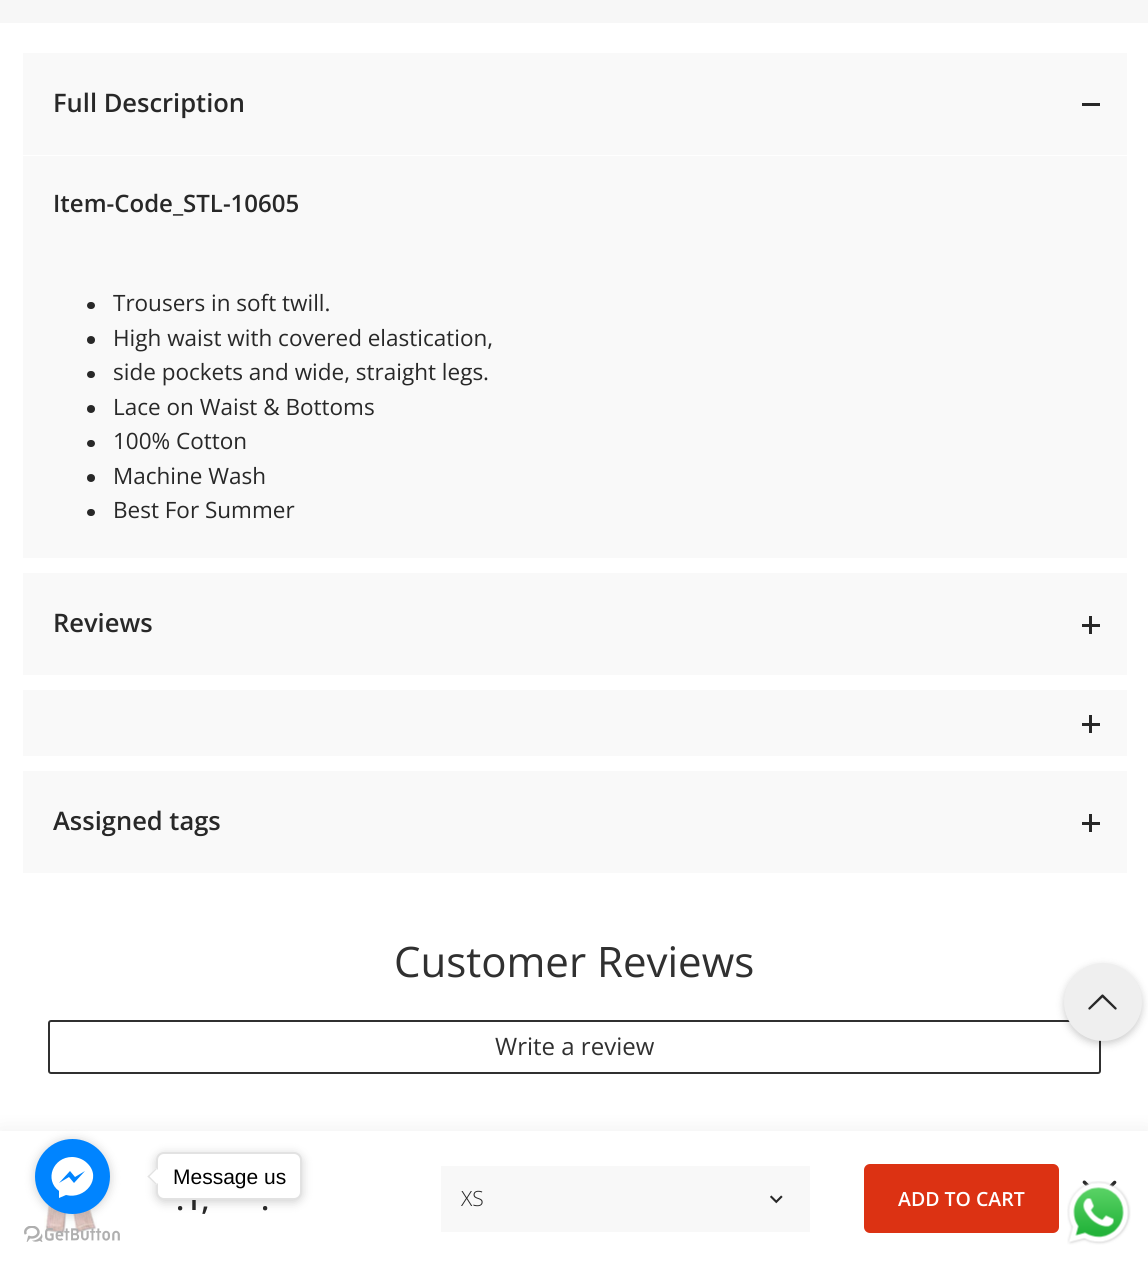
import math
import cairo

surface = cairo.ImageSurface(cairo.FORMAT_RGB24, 1148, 1263)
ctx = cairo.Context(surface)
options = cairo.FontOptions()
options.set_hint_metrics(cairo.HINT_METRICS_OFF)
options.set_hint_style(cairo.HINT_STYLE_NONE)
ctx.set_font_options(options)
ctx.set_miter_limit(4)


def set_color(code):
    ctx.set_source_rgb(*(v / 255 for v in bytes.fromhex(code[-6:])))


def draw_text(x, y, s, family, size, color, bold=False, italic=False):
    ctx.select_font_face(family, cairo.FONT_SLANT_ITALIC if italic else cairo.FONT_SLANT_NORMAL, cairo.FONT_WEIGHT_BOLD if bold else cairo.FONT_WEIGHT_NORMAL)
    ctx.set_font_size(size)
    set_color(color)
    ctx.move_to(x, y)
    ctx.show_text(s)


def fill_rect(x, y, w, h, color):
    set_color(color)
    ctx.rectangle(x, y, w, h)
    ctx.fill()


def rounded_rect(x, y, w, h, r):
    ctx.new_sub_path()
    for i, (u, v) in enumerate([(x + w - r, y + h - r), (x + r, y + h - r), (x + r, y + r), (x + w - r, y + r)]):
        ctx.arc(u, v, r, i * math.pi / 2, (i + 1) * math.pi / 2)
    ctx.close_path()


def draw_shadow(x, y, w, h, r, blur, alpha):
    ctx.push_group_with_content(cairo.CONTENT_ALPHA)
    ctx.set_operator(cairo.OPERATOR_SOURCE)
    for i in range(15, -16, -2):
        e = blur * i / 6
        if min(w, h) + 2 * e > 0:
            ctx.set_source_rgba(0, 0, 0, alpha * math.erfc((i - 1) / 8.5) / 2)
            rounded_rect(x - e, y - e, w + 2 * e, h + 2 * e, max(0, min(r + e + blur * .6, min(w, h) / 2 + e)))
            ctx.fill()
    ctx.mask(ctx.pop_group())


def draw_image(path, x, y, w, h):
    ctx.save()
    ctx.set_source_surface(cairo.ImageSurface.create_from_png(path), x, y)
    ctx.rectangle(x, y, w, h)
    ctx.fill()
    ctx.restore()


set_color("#ffffff")
ctx.paint()
fill_rect(0, 0, 1148, 23, "#f7f7f7")
fill_rect(23, 53, 1104, 102, "#f9f9f9")
draw_text(53, 112, "Full Description", "Open Sans SemiBold", 25.5, "#282828")
fill_rect(1082, 103, 18, 3, "#282828")
fill_rect(23, 156, 1104, 402, "#f9f9f9")
draw_text(53, 212, "Item-Code_STL-10605", "Open Sans SemiBold", 24, "#282828")
rounded_rect(87, 302, 8, 7, 3.5)
ctx.fill()
draw_text(113, 311, "Trousers in soft twill.", "Open Sans", 22.5, "#282828")
ctx.new_path()
ctx.arc(91, 340, 4, 0, 2 * math.pi)
ctx.fill()
draw_text(113, 346, "High waist with covered elastication,", "Open Sans", 22.5, "#282828")
rounded_rect(87, 371, 8, 7, 3.5)
ctx.fill()
draw_text(113, 380, "side pockets and wide, straight legs.", "Open Sans", 22.5, "#282828")
ctx.new_path()
ctx.arc(91, 409, 4, 0, 2 * math.pi)
ctx.fill()
draw_text(113, 415, "Lace on Waist & Bottoms", "Open Sans", 22.5, "#282828")
rounded_rect(87, 440, 8, 7, 3.5)
ctx.fill()
draw_text(113, 449, "100% Cotton", "Open Sans", 22.5, "#282828")
ctx.new_path()
ctx.arc(91, 478, 4, 0, 2 * math.pi)
ctx.fill()
draw_text(113, 484, "Machine Wash", "Open Sans", 22.5, "#282828")
rounded_rect(87, 509, 8, 7, 3.5)
ctx.fill()
draw_text(113, 518, "Best For Summer", "Open Sans", 22.5, "#282828")
fill_rect(23, 573, 1104, 102, "#f9f9f9")
draw_text(53, 632, "Reviews", "Open Sans SemiBold", 25.5, "#282828")
fill_rect(1089, 616, 3, 18, "#282828")
fill_rect(1082, 624, 18, 3, "#282828")
fill_rect(23, 690, 1104, 66, "#f9f9f9")
fill_rect(1089, 715, 3, 18, "#282828")
fill_rect(1082, 723, 18, 3, "#282828")
fill_rect(23, 771, 1104, 102, "#f9f9f9")
draw_text(53, 830, "Assigned tags", "Open Sans SemiBold", 25.5, "#282828")
fill_rect(1089, 814, 3, 18, "#282828")
fill_rect(1082, 822, 18, 3, "#282828")
draw_text(394, 977, "Customer Reviews", "Open Sans", 42, "#303030")
rounded_rect(49, 1021, 1051, 52, 2)
ctx.stroke()
draw_text(495, 1055, "Write a review", "Open Sans", 24, "#303030")
set_color("#000000")
draw_shadow(0, 1131, 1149, 132, 0, 11, 0.07)
fill_rect(0, 1131, 1148, 132, "#ffffff")
draw_image("assets/img4.png", 44, 1200, 53, 34)
draw_image("assets/img1.png", 24, 1226, 96, 16)
set_color("#888888")
draw_shadow(35, 1140, 75, 75, 37.5, 5, 0.4)
set_color("#0084ff")
ctx.arc(72.5, 1176.5, 37.5, 0, 2 * math.pi)
ctx.fill()
set_color("#ffffff")
ctx.new_path()
ctx.move_to(72, 1157)
ctx.curve_to(53, 1157, 44, 1180, 59, 1191)
ctx.line_to(59, 1198)
ctx.line_to(66, 1195)
ctx.curve_to(85, 1200, 103, 1178, 87, 1163)
ctx.curve_to(83, 1159, 77, 1157, 72, 1157)
ctx.close_path()
ctx.move_to(74, 1183)
ctx.line_to(69, 1177)
ctx.line_to(59, 1183)
ctx.line_to(70, 1171)
ctx.line_to(75, 1177)
ctx.line_to(85, 1171)
ctx.close_path()
ctx.fill()
set_color("#888888")
draw_shadow(156, 1154, 146, 48, 8, 5, 0.4)
draw_text(176, 1210, ".1,", "Open Sans SemiBold", 30, "#282828")
set_color("#ffffff")
rounded_rect(157, 1153, 144, 46, 7)
ctx.fill_preserve()
set_color("#e2e2e2")
ctx.stroke()
set_color("#ffffff")
ctx.new_path()
ctx.move_to(147.5, 1176.5)
ctx.line_to(156, 1168)
ctx.line_to(164.5, 1176.5)
ctx.line_to(156, 1185)
ctx.close_path()
ctx.fill()
set_color("#e2e2e2")
ctx.new_path()
ctx.move_to(147.5, 1176.5)
ctx.line_to(156, 1168)
ctx.line_to(157, 1169)
ctx.line_to(148.5, 1177.5)
ctx.close_path()
ctx.fill()
ctx.new_path()
ctx.move_to(147.5, 1176.5)
ctx.line_to(148.5, 1175.5)
ctx.line_to(157, 1184)
ctx.line_to(156, 1185)
ctx.close_path()
ctx.fill()
draw_text(173, 1184, "Message us", "Liberation Sans", 21, "#000000")
set_color("#000000")
draw_shadow(1064, 966, 78, 78, 39, 4, 0.2)
set_color("#efefef")
ctx.arc(1103, 1002, 39, 0, 2 * math.pi)
ctx.fill()
draw_image("assets/img2.png", 1088, 994, 29, 16)
draw_image("assets/img3.png", 1082, 1180, 35, 8)
draw_text(261, 1210, ".", "Open Sans SemiBold", 30, "#282828")
fill_rect(441, 1166, 369, 66, "#f8f8f8")
draw_text(461, 1206, "XS", "Open Sans Light", 21, "#282828")
draw_image("assets/img5.png", 770, 1195, 13, 9)
set_color("#dc3213")
rounded_rect(864, 1164, 195, 69, 6)
ctx.fill()
draw_text(898, 1206, "ADD TO CART", "Open Sans SemiBold", 19.5, "#ffffff")
draw_image("assets/img6.png", 1067, 1181, 64, 64)
surface.write_to_png("output.png")
